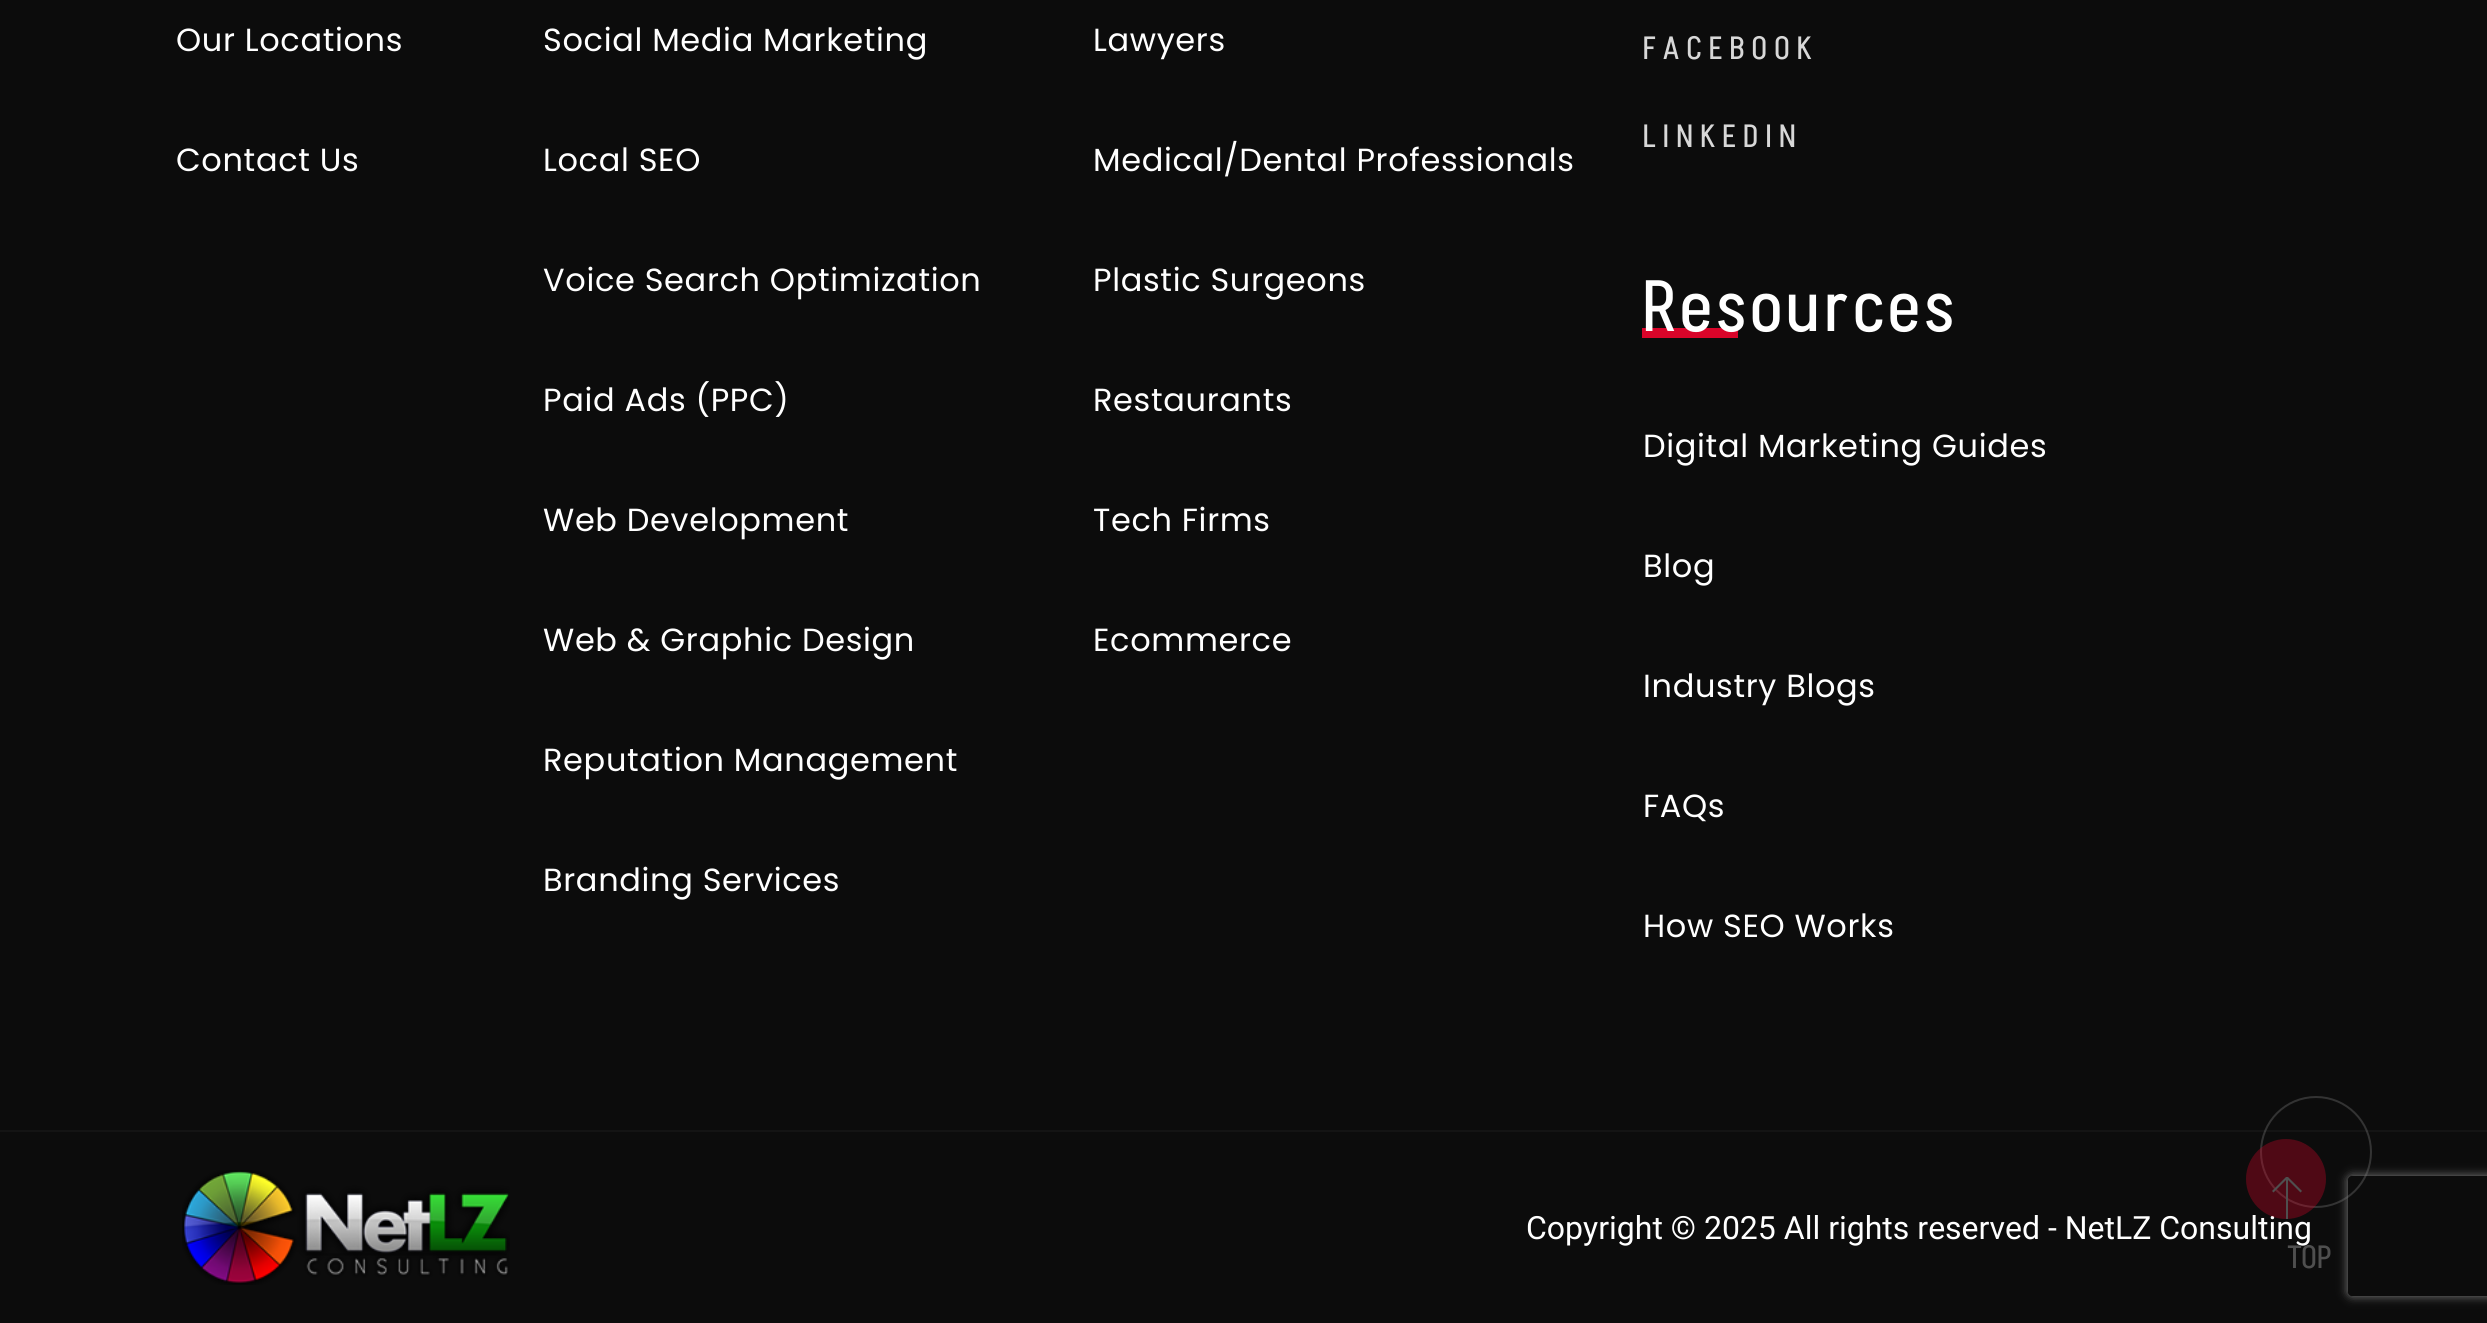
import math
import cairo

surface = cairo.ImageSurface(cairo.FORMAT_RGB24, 2487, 1323)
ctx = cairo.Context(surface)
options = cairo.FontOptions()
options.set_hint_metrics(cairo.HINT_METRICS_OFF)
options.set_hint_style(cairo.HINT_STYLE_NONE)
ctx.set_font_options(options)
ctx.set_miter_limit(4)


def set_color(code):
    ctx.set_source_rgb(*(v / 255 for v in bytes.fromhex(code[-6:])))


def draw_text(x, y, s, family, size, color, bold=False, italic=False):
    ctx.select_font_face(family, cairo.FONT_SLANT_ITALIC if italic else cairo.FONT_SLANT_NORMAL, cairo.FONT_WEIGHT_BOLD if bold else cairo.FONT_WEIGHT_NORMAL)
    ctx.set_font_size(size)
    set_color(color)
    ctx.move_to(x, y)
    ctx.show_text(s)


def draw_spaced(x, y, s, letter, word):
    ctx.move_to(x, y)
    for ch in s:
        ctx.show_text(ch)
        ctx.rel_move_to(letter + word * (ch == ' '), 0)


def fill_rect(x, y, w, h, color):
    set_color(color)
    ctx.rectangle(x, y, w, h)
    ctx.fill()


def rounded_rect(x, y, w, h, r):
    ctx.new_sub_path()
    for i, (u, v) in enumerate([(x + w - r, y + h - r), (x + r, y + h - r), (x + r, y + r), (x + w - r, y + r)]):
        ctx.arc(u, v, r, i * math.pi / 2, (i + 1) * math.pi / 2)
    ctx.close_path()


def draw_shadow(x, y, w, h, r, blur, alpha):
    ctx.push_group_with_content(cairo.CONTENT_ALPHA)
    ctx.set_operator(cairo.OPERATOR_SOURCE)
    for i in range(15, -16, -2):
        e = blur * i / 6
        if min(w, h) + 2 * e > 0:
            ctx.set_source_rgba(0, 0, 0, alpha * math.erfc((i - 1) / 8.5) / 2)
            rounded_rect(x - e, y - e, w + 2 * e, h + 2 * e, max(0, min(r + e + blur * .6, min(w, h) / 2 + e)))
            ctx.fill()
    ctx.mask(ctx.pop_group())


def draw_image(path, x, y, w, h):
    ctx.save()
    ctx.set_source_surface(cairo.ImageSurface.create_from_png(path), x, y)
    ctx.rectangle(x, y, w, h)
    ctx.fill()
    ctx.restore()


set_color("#0c0c0c")
ctx.paint()
ctx.select_font_face("Poppins")
ctx.set_font_size(32)
set_color("#ffffff")
draw_spaced(176, 51, "Our Locations", 0.65, 0)
draw_spaced(176, 171, "Contact Us", 0.65, 0)
draw_spaced(543, 51, "Social Media Marketing", 0.65, 0)
draw_spaced(543, 171, "Local SEO", 0.65, 0)
draw_spaced(543, 291, "Voice Search Optimization", 0.65, 0)
draw_spaced(543, 411, "Paid Ads (PPC)", 0.65, 0)
draw_spaced(543, 531, "Web Development", 0.65, 0)
draw_spaced(543, 651, "Web & Graphic Design", 0.65, 0)
draw_spaced(543, 771, "Reputation Management", 0.65, 0)
draw_spaced(543, 891, "Branding Services", 0.65, 0)
draw_spaced(1093, 51, "Lawyers", 0.65, 0)
draw_spaced(1093, 171, "Medical/Dental Professionals", 0.65, 0)
draw_spaced(1093, 291, "Plastic Surgeons", 0.65, 0)
draw_spaced(1093, 411, "Restaurants", 0.65, 0)
draw_spaced(1093, 531, "Tech Firms", 0.65, 0)
draw_spaced(1093, 651, "Ecommerce", 0.65, 0)
ctx.select_font_face("Akshar")
set_color("#d8d8d8")
draw_spaced(1643, 59, "FACEBOOK", 7.75, 0)
draw_spaced(1643, 147, "LINKEDIN", 7.75, 0)
fill_rect(1642, 328, 96, 10, "#d90429")
ctx.set_font_size(72)
set_color("#ffffff")
draw_spaced(1643, 331, "Resources", 5.75, 0)
ctx.select_font_face("Poppins")
ctx.set_font_size(32)
draw_spaced(1643, 457, "Digital Marketing Guides", 0.65, 0)
draw_spaced(1643, 577, "Blog", 0.65, 0)
draw_spaced(1643, 697, "Industry Blogs", 0.65, 0)
draw_spaced(1643, 817, "FAQs", 0.65, 0)
draw_spaced(1643, 937, "How SEO Works", 0.65, 0)
fill_rect(0, 1130, 2487, 2, "#141414")
draw_image("assets/img1.png", 182, 1170, 328, 115)
draw_text(1526, 1239, "Copyright © 2025 All rights reserved - NetLZ Consulting", "Roboto", 32, "#ffffff")
ctx.new_path()
ctx.arc(2316, 1152, 55, 0, 2 * math.pi)
ctx.set_source_rgba(0.51, 0.51, 0.51, 0.33)
ctx.stroke()
ctx.set_source_rgba(0.851, 0.016, 0.161, 0.33)
ctx.new_path()
ctx.move_to(2246, 1179)
ctx.curve_to(2246, 1157, 2264, 1139, 2286, 1139)
ctx.curve_to(2308, 1139, 2326, 1157, 2326, 1179)
ctx.curve_to(2326, 1201, 2308, 1219, 2286, 1219)
ctx.curve_to(2264, 1219, 2246, 1201, 2246, 1179)
ctx.close_path()
ctx.fill()
set_color("#4f4f4f")
ctx.new_path()
ctx.move_to(2272, 1191)
ctx.line_to(2286, 1177)
ctx.line_to(2287.5, 1178.5)
ctx.line_to(2273.5, 1192.5)
ctx.close_path()
ctx.fill()
fill_rect(2286, 1177, 2, 42, "#4f4f4f")
ctx.new_path()
ctx.move_to(2300.5, 1192.5)
ctx.line_to(2286.5, 1178.5)
ctx.line_to(2288, 1177)
ctx.line_to(2302, 1191)
ctx.close_path()
ctx.fill()
ctx.select_font_face("Akshar")
draw_spaced(2288, 1268, "TOP", 0.65, 0)
ctx.save()
ctx.set_fill_rule(cairo.FILL_RULE_EVEN_ODD)
ctx.new_path()
ctx.move_to(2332, 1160)
ctx.line_to(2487, 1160)
ctx.line_to(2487, 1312)
ctx.line_to(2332, 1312)
ctx.close_path()
ctx.move_to(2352, 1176)
ctx.line_to(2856, 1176)
ctx.curve_to(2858, 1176, 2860, 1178, 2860, 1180)
ctx.line_to(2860, 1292)
ctx.curve_to(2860, 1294, 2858, 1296, 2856, 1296)
ctx.line_to(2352, 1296)
ctx.curve_to(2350, 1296, 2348, 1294, 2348, 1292)
ctx.line_to(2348, 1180)
ctx.curve_to(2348, 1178, 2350, 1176, 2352, 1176)
ctx.close_path()
ctx.clip()
set_color("#808080")
draw_shadow(2348, 1176, 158, 120, 4, 5, 1)
ctx.restore()
surface.write_to_png("output.png")
